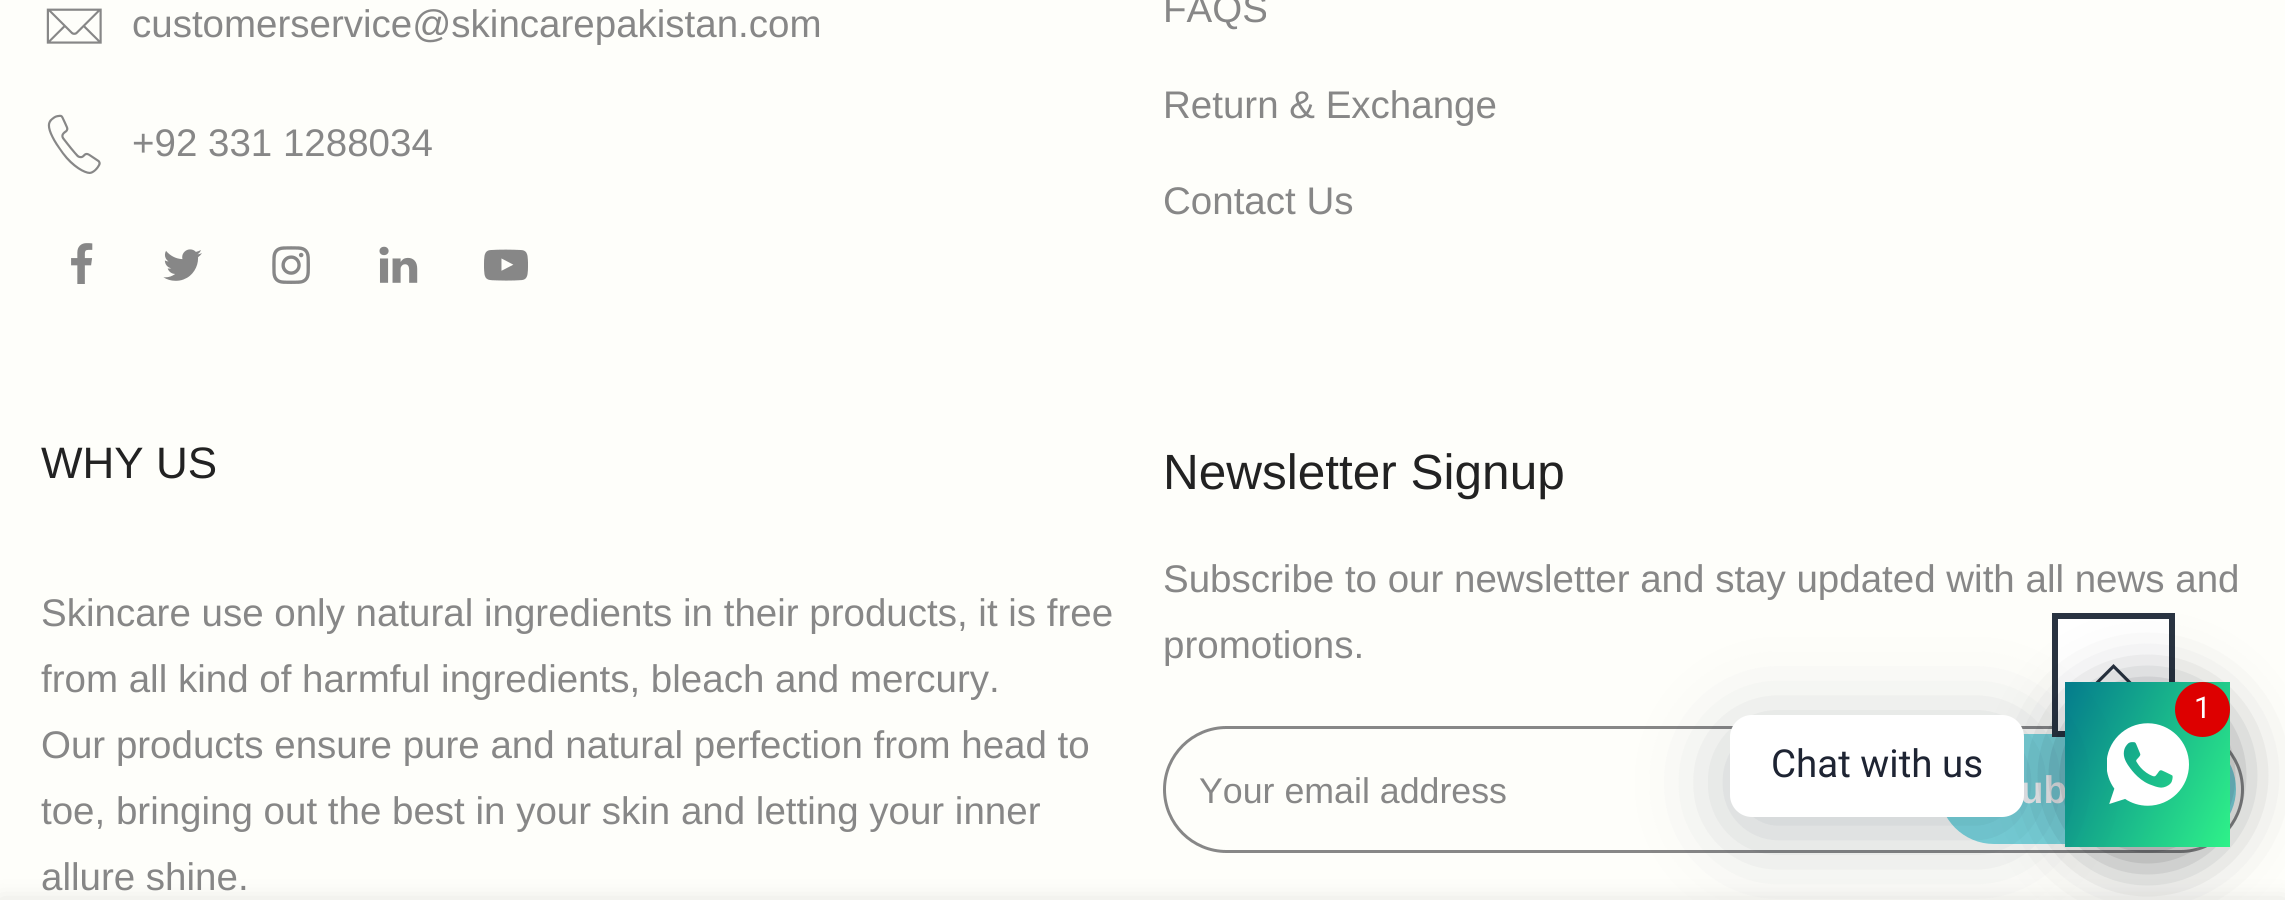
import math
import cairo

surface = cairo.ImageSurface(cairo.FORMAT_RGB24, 2285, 900)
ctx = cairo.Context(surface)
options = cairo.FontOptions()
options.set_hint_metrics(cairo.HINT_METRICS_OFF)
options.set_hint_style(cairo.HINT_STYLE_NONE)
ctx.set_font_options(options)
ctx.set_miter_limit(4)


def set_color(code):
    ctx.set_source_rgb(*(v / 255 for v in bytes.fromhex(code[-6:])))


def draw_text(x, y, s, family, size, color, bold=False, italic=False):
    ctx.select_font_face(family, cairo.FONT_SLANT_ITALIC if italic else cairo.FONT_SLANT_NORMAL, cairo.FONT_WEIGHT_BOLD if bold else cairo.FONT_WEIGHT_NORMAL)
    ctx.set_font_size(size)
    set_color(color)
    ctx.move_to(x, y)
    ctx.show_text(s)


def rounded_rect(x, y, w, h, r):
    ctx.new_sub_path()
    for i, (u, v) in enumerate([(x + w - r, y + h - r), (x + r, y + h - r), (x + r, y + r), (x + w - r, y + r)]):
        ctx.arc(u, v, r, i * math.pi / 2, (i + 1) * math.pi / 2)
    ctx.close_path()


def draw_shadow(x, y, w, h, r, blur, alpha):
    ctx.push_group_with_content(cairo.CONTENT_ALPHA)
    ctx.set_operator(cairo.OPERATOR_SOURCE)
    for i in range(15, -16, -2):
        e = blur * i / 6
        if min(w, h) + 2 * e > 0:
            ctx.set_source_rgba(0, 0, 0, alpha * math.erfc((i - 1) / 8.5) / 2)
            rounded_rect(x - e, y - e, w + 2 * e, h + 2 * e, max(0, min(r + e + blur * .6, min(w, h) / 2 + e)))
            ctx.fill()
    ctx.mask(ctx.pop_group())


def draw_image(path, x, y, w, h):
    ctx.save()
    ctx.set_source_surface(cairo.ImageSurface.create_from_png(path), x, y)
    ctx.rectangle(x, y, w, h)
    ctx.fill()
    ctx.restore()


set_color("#fefefa")
ctx.paint()
draw_image("assets/img1.png", 46, 8, 56, 36)
draw_text(132, 37, "customerservice@skincarepakistan.com", "Liberation Sans", 38.5, "#878787")
draw_image("assets/img2.png", 47, 114, 54, 60)
draw_text(132, 156, "+92 331 1288034", "Liberation Sans", 38.5, "#878787")
draw_image("assets/img3.png", 71, 243, 22, 41)
draw_image("assets/img4.png", 163, 249, 39, 32)
draw_image("assets/img5.png", 272, 246, 38, 38)
draw_image("assets/img6.png", 379, 246, 39, 37)
draw_image("assets/img7.png", 484, 249, 44, 32)
draw_text(1163, 22, "FAQS", "Liberation Sans", 38.5, "#878787")
draw_text(1163, 118, "Return & Exchange", "Liberation Sans", 38.5, "#878787")
draw_text(1163, 214, "Contact Us", "Liberation Sans", 38.5, "#878787")
draw_text(41, 478, "WHY US", "Liberation Sans", 44, "#222222")
draw_text(41, 626, "Skincare use only natural ingredients in their products, it is free", "Liberation Sans", 38.5, "#878787")
draw_text(41, 692, "from all kind of harmful ingredients, bleach and mercury.", "Liberation Sans", 38.5, "#878787")
draw_text(41, 758, "Our products ensure pure and natural perfection from head to", "Liberation Sans", 38.5, "#878787")
draw_text(41, 824, "toe, bringing out the best in your skin and letting your inner", "Liberation Sans", 38.5, "#878787")
draw_text(41, 890, "allure shine.", "Liberation Sans", 38.5, "#878787")
draw_text(1163, 489, "Newsletter Signup", "Liberation Sans", 49.5, "#222222")
draw_text(1163, 592, "Subscribe to our newsletter and stay updated with all news and", "Liberation Sans", 38.5, "#878787")
draw_text(1163, 658, "promotions.", "Liberation Sans", 38.5, "#878787")
rounded_rect(1164.5, 727.5, 1078, 124, 62)
ctx.set_line_width(3)
ctx.stroke()
draw_text(1199, 803, "Your email address", "Liberation Sans", 35.75, "#878787")
set_color("#7edae1")
rounded_rect(1939, 734, 297, 110, 55)
ctx.fill()
draw_text(2020, 803, "ub", "Liberation Sans", 38.5, "#ffffff", bold=True)
ctx.rectangle(2055, 616, 117, 118)
ctx.fill_preserve()
set_color("#293341")
ctx.set_line_width(6)
ctx.stroke()
ctx.new_path()
ctx.move_to(2115.5, 666)
ctx.line_to(2113.5, 664)
ctx.line_to(2095.5, 682)
ctx.line_to(2097.5, 684.5)
ctx.line_to(2113.5, 668.5)
ctx.line_to(2129, 684)
ctx.line_to(2131.5, 682)
ctx.close_path()
ctx.fill()
set_color("#000000")
draw_shadow(0, 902, 2285, 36, 0, 12.5, 0.12)
set_color("#020610")
draw_shadow(2065, 693, 165, 165, 82.5, 33, 0.5)
gradient = cairo.LinearGradient(2048, 718, 2247, 811)
gradient.add_color_stop_rgba(0, 0.016, 0.486, 0.553, 1)
gradient.add_color_stop_rgba(1, 0.184, 0.949, 0.537, 1)
ctx.set_source(gradient)
ctx.rectangle(2065, 682, 165, 165)
ctx.fill()
set_color("#00122e")
draw_shadow(1730, 732, 294, 101, 22, 44, 0.24)
draw_image("assets/img8.png", 2107, 723, 82, 83)
set_color("#dd0000")
ctx.arc(2202.5, 709.5, 27.5, 0, 2 * math.pi)
ctx.fill()
draw_text(2194, 718, "1", "Roboto", 30, "#ffffff")
rounded_rect(1730, 715, 294, 102, 22)
ctx.fill()
draw_text(1771, 777, "Chat with us", "Roboto", 38.5, "#1e2433")
surface.write_to_png("output.png")
